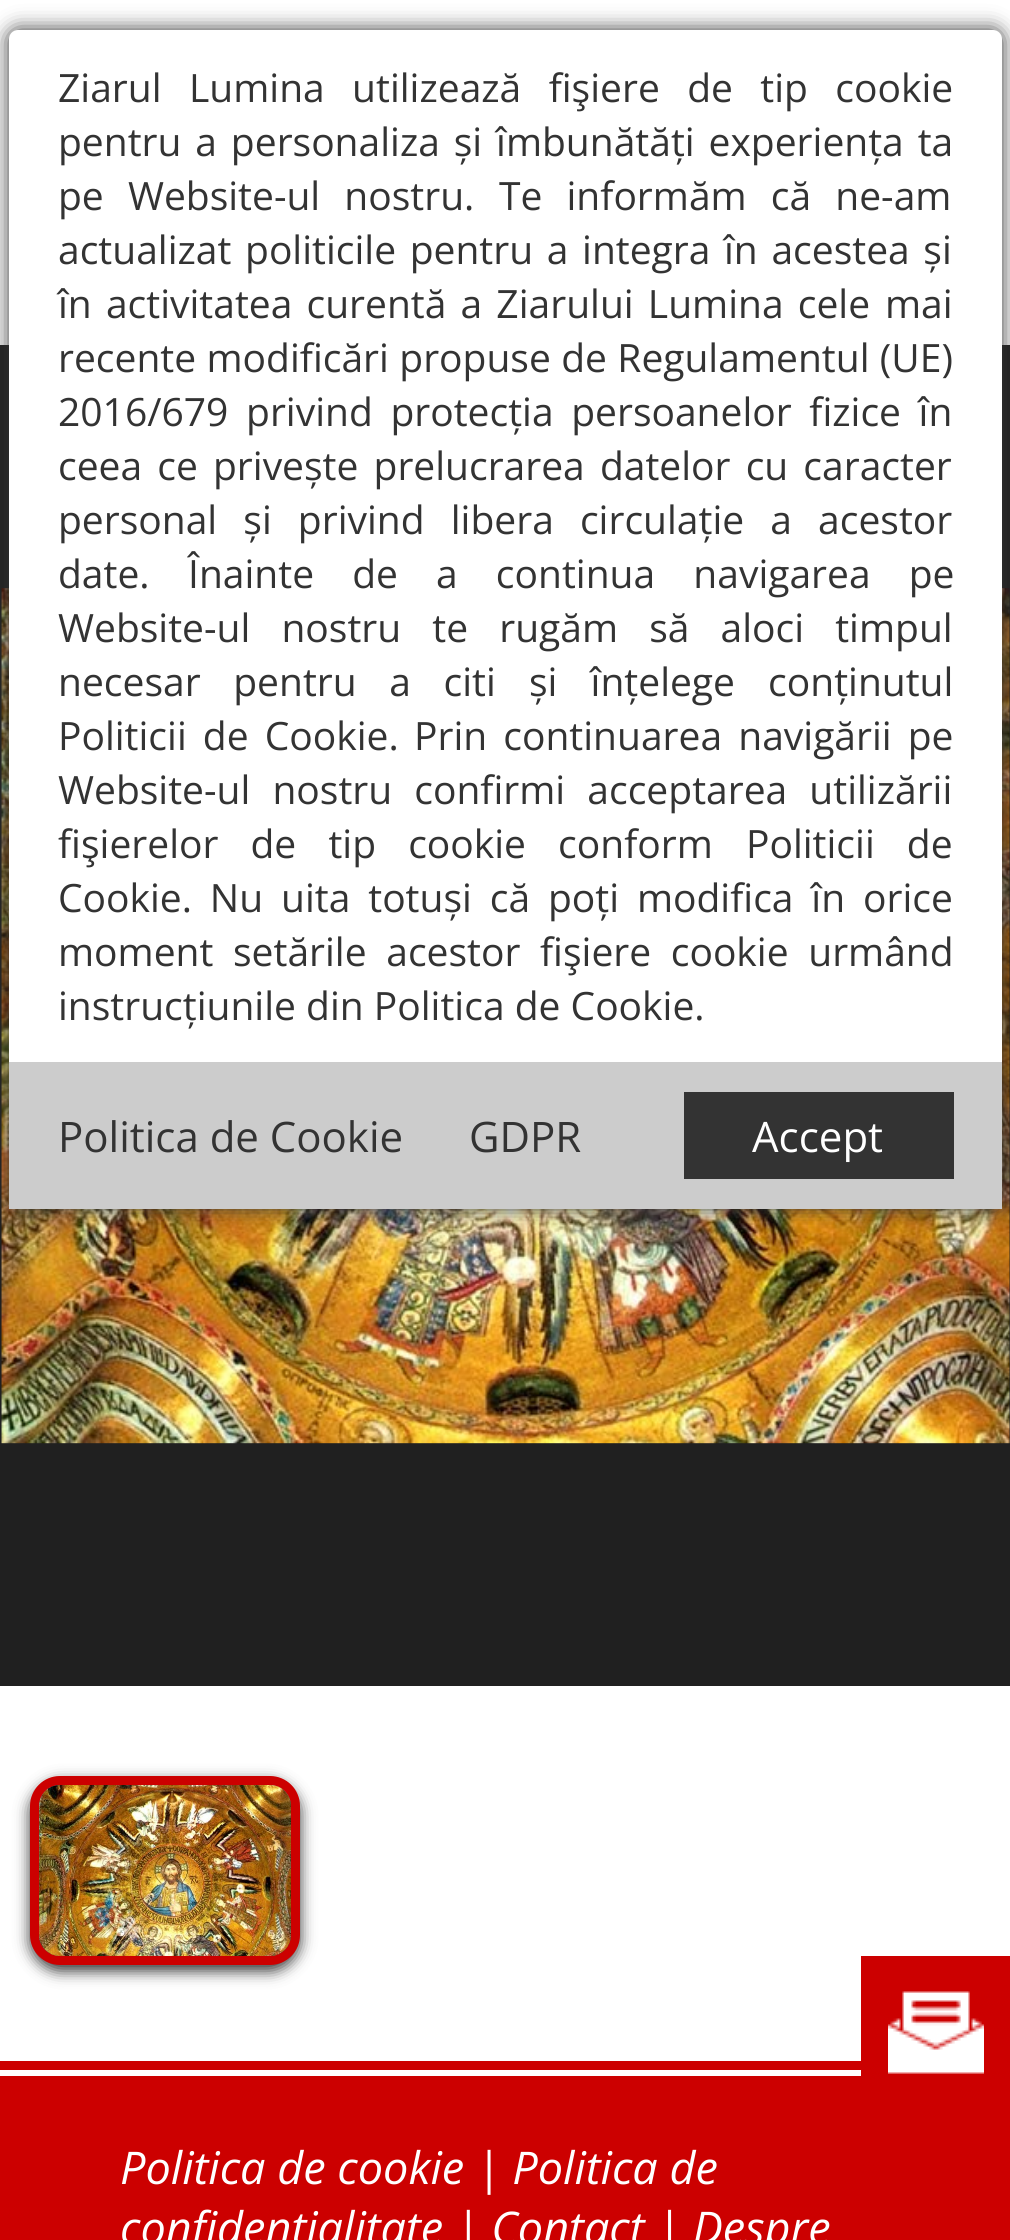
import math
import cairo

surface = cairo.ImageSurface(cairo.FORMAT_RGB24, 1010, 2240)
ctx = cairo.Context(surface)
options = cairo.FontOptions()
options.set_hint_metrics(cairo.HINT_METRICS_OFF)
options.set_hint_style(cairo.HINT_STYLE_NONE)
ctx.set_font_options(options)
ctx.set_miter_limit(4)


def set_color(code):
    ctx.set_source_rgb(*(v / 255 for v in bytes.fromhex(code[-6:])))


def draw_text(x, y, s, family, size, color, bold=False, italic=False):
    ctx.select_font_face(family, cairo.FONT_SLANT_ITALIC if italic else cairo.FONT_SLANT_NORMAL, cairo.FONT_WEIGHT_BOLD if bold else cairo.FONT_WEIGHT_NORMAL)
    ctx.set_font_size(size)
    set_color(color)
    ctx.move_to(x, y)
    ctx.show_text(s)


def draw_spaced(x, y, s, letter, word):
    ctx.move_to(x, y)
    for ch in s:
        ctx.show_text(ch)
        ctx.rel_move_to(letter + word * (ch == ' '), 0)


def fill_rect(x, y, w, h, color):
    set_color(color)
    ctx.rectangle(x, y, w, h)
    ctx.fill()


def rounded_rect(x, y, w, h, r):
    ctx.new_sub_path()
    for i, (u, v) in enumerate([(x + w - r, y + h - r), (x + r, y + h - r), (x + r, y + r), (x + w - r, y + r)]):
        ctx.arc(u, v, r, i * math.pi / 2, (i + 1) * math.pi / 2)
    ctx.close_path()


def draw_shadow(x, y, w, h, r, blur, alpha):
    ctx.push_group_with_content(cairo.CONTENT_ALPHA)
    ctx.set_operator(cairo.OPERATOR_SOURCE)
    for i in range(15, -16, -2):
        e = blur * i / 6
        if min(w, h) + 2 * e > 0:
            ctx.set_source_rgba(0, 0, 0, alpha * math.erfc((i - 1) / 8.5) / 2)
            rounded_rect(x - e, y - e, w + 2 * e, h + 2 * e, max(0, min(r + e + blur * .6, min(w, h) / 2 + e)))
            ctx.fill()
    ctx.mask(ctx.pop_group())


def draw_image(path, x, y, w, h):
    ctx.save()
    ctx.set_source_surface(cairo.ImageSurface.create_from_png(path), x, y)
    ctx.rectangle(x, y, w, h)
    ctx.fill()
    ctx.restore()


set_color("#ffffff")
ctx.paint()
fill_rect(0, 345, 1010, 1341, "#202020")
draw_image("assets/img1.png", 1, 588, 1009, 856)
set_color("#333333")
draw_shadow(9, 30, 993, 1179, 9, 10.5, 1)
set_color("#ffffff")
rounded_rect(9, 30, 993, 1179, 9)
ctx.fill()
ctx.select_font_face("Open Sans")
ctx.set_font_size(39)
set_color("#333333")
draw_spaced(58, 102, "Ziarul Lumina utilizează fişiere de tip cookie", 0, 17.25)
draw_spaced(58, 156, "pentru a personaliza și îmbunătăți experiența ta", 0, 3.75)
draw_spaced(58, 210, "pe Website-ul nostru.", 0, 14)
draw_spaced(499, 210, "Te informăm că ne-am", 0, 14)
draw_spaced(58, 264, "actualizat politicile pentru a integra în acestea și", 0, 3.5)
draw_spaced(58, 318, "în activitatea curentă a Ziarului Lumina cele", 0, 4)
draw_text(885, 318, "mai", "Open Sans", 39, "#333333")
draw_spaced(58, 372, "recente modificări propuse de Regulamentul (UE)", 0, 0.25)
draw_spaced(58, 426, "2016/679 privind protecția persoanelor fizice în", 0, 7.5)
draw_spaced(58, 480, "ceea ce", 0, 5)
draw_spaced(213, 480, "privește prelucrarea datelor cu caracter", 0, 5)
draw_spaced(58, 534, "personal și privind libera circulație a acestor", 0, 16)
draw_text(58, 588, "date.", "Open Sans", 39, "#333333")
draw_spaced(188, 588, "Înainte de a continua navigarea pe", 0, 28)
draw_spaced(58, 642, "Website-ul nostru te rugăm să aloci timpul", 0, 21)
draw_spaced(58, 696, "necesar pentru a citi", 0, 22.5)
draw_spaced(529, 696, "și înțelege conținutul", 0, 23)
draw_spaced(58, 750, "Politicii de Cookie.", 0, 6)
draw_spaced(414, 750, "Prin continuarea navigării pe", 0, 6)
draw_spaced(58, 804, "Website-ul nostru confirmi acceptarea utilizării", 0, 12)
draw_spaced(58, 858, "fişierelor de tip cookie conform", 0, 22)
draw_spaced(746, 858, "Politicii de", 0, 22)
draw_spaced(58, 912, "Cookie. Nu uita totuși că poți modifica în", 0, 7.75)
draw_text(863, 912, "orice", "Open Sans", 39, "#333333")
draw_spaced(58, 966, "moment setările acestor fişiere cookie urmând", 0, 9.5)
draw_text(58, 1020, "instrucțiunile din Politica de Cookie.", "Open Sans", 39, "#333333")
fill_rect(9, 1062, 993, 147, "#cccccc")
draw_text(58, 1152, "Politica de Cookie", "Open Sans", 42, "#333333")
draw_text(469, 1152, "GDPR", "Open Sans", 42, "#333333")
fill_rect(684, 1092, 270, 87, "#333333")
draw_text(752, 1152, "Accept", "Open Sans", 42, "#ffffff")
set_color("#000000")
draw_shadow(30, 1782, 270, 189, 30, 7.5, 0.8)
rounded_rect(34.5, 1780.5, 261, 180, 25.5)
set_color("#cc0000")
ctx.set_line_width(9)
ctx.stroke()
draw_image("assets/img2.png", 39, 1785, 252, 171)
fill_rect(861, 1956, 149, 120, "#cc0000")
draw_image("assets/img3.png", 888, 1991, 96, 83)
fill_rect(0, 2061, 861, 9, "#cc0000")
fill_rect(0, 2076, 1010, 164, "#cc0000")
draw_text(120, 2184, "Politica de cookie | Politica de", "Open Sans", 45, "#ffffff", italic=True)
draw_text(120, 2244, "confidențialitate | Contact | Despre", "Open Sans", 45, "#ffffff", italic=True)
surface.write_to_png("output.png")
